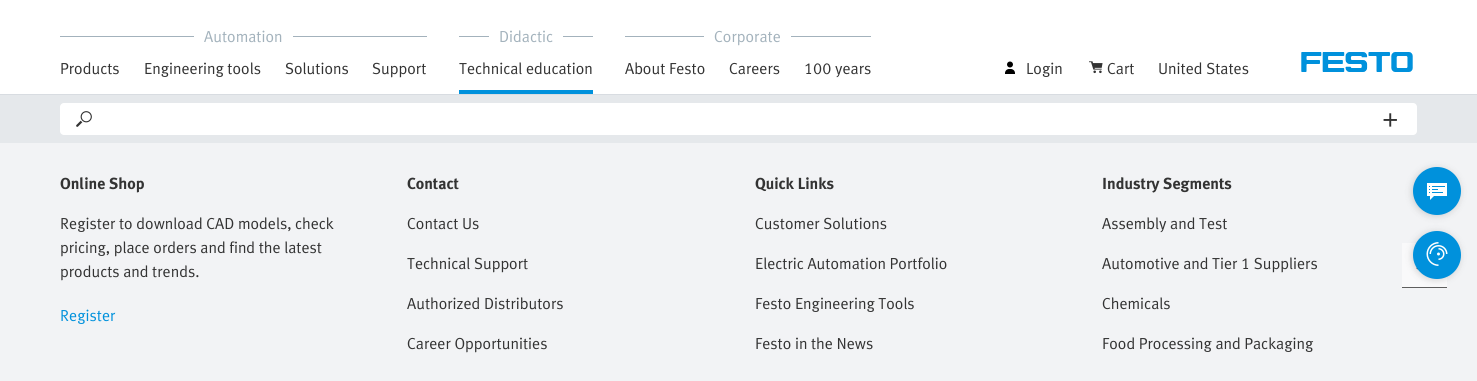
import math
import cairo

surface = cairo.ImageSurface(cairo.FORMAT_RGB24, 1477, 381)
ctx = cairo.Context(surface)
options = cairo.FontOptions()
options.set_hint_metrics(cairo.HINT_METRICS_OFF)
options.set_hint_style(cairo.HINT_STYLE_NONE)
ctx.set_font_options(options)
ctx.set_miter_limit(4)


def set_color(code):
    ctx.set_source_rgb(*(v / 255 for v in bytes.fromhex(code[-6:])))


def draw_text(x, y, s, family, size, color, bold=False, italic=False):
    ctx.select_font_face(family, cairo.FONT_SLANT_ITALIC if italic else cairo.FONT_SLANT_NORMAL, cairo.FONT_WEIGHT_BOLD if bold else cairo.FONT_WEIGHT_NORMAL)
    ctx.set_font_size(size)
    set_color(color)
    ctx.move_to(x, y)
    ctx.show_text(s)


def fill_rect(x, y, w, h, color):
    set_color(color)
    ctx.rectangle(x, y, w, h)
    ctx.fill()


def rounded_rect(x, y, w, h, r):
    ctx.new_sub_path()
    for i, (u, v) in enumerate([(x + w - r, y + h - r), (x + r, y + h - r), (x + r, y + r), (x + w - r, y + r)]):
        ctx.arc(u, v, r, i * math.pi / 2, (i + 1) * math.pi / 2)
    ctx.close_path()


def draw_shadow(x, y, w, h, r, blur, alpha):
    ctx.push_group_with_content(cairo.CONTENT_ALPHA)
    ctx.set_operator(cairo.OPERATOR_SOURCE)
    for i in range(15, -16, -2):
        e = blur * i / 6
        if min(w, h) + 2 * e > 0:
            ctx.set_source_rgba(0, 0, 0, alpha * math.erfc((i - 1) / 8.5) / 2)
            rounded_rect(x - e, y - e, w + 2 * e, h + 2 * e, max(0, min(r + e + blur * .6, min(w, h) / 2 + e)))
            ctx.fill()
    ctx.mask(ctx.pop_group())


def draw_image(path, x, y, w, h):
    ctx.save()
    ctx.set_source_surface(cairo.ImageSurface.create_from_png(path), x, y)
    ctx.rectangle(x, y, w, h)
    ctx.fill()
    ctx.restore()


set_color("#f2f3f5")
ctx.paint()
fill_rect(0, 0, 1477, 94, "#ffffff")
fill_rect(60, 36, 367, 1, "#a3b2bc")
fill_rect(194, 36, 99, 1, "#ffffff")
draw_text(204, 42, "Automation", "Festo", 16, "#a3b2bc")
draw_text(60, 74, "Products", "Festo", 16, "#333333")
draw_text(144, 74, "Engineering tools", "Festo", 16, "#333333")
draw_text(285, 74, "Solutions", "Festo", 16, "#333333")
draw_text(372, 74, "Support", "Festo", 16, "#333333")
fill_rect(459, 36, 134, 1, "#a3b2bc")
fill_rect(489, 36, 74, 1, "#ffffff")
draw_text(499, 42, "Didactic", "Festo", 16, "#a3b2bc")
fill_rect(459, 90, 134, 4, "#0091dc")
draw_text(459, 74, "Technical education", "Festo", 16, "#333333")
fill_rect(625, 36, 246, 1, "#a3b2bc")
fill_rect(704, 36, 87, 1, "#ffffff")
draw_text(714, 42, "Corporate", "Festo", 16, "#a3b2bc")
draw_text(625, 74, "About Festo", "Festo", 16, "#333333")
draw_text(729, 74, "Careers", "Festo", 16, "#333333")
draw_text(804, 74, "100 years", "Festo", 16, "#333333")
draw_image("assets/img1.png", 1005, 61, 10, 13)
draw_text(1026, 74, "Login", "Festo", 16, "#333333")
draw_image("assets/img2.png", 1089, 61, 14, 13)
draw_text(1107, 74, "Cart", "Festo", 16, "#333333")
draw_text(1158, 74, "United States", "Festo", 16, "#333333")
draw_image("assets/img3.png", 1301, 52, 112, 20)
fill_rect(0, 95, 1477, 48, "#e5e8eb")
fill_rect(0, 94, 1477, 1, "#d8dce1")
set_color("#ffffff")
rounded_rect(60, 103, 1357, 32, 4)
ctx.fill()
draw_image("assets/img4.png", 76, 111, 16, 16)
draw_image("assets/img5.png", 1383, 113, 14, 14)
draw_text(60, 189, "Online Shop", "Festo", 16, "#333333", bold=True)
draw_text(60, 229, "Register to download CAD models, check", "Festo", 16, "#333333")
draw_text(60, 253, "pricing, place orders and find the latest", "Festo", 16, "#333333")
draw_text(60, 277, "products and trends.", "Festo", 16, "#333333")
draw_text(60, 321, "Register", "Festo", 16, "#0091dc")
draw_text(407, 189, "Contact", "Festo", 16, "#333333", bold=True)
draw_text(407, 229, "Contact Us", "Festo", 16, "#333333")
draw_text(407, 269, "Technical Support", "Festo", 16, "#333333")
draw_text(407, 309, "Authorized Distributors", "Festo", 16, "#333333")
draw_text(407, 349, "Career Opportunities", "Festo", 16, "#333333")
draw_text(755, 189, "Quick Links", "Festo", 16, "#333333", bold=True)
draw_text(755, 229, "Customer Solutions", "Festo", 16, "#333333")
draw_text(755, 269, "Electric Automation Portfolio", "Festo", 16, "#333333")
draw_text(755, 309, "Festo Engineering Tools", "Festo", 16, "#333333")
draw_text(755, 349, "Festo in the News", "Festo", 16, "#333333")
draw_text(1102, 189, "Industry Segments", "Festo", 16, "#333333", bold=True)
draw_text(1102, 229, "Assembly and Test", "Festo", 16, "#333333")
draw_text(1102, 269, "Automotive and Tier 1 Suppliers", "Festo", 16, "#333333")
draw_text(1102, 309, "Chemicals", "Festo", 16, "#333333")
draw_text(1102, 349, "Food Processing and Packaging", "Festo", 16, "#333333")
set_color("#333333")
draw_shadow(1412, 168, 48, 48, 24, 3.5, 0.2)
set_color("#0091dc")
ctx.arc(1437, 191, 24, 0, 2 * math.pi)
ctx.fill()
draw_image("assets/img6.png", 1427, 183, 20, 17)
fill_rect(1402, 243, 45, 44, "#f9f9fa")
draw_image("assets/img8.png", 1416, 267, 2, 3)
fill_rect(1402, 287, 45, 1, "#5e5e5e")
set_color("#333333")
draw_shadow(1412, 232, 48, 48, 24, 3.5, 0.2)
set_color("#0091dc")
ctx.arc(1437, 255, 24, 0, 2 * math.pi)
ctx.fill()
draw_image("assets/img7.png", 1426, 242, 22, 24)
surface.write_to_png("output.png")
